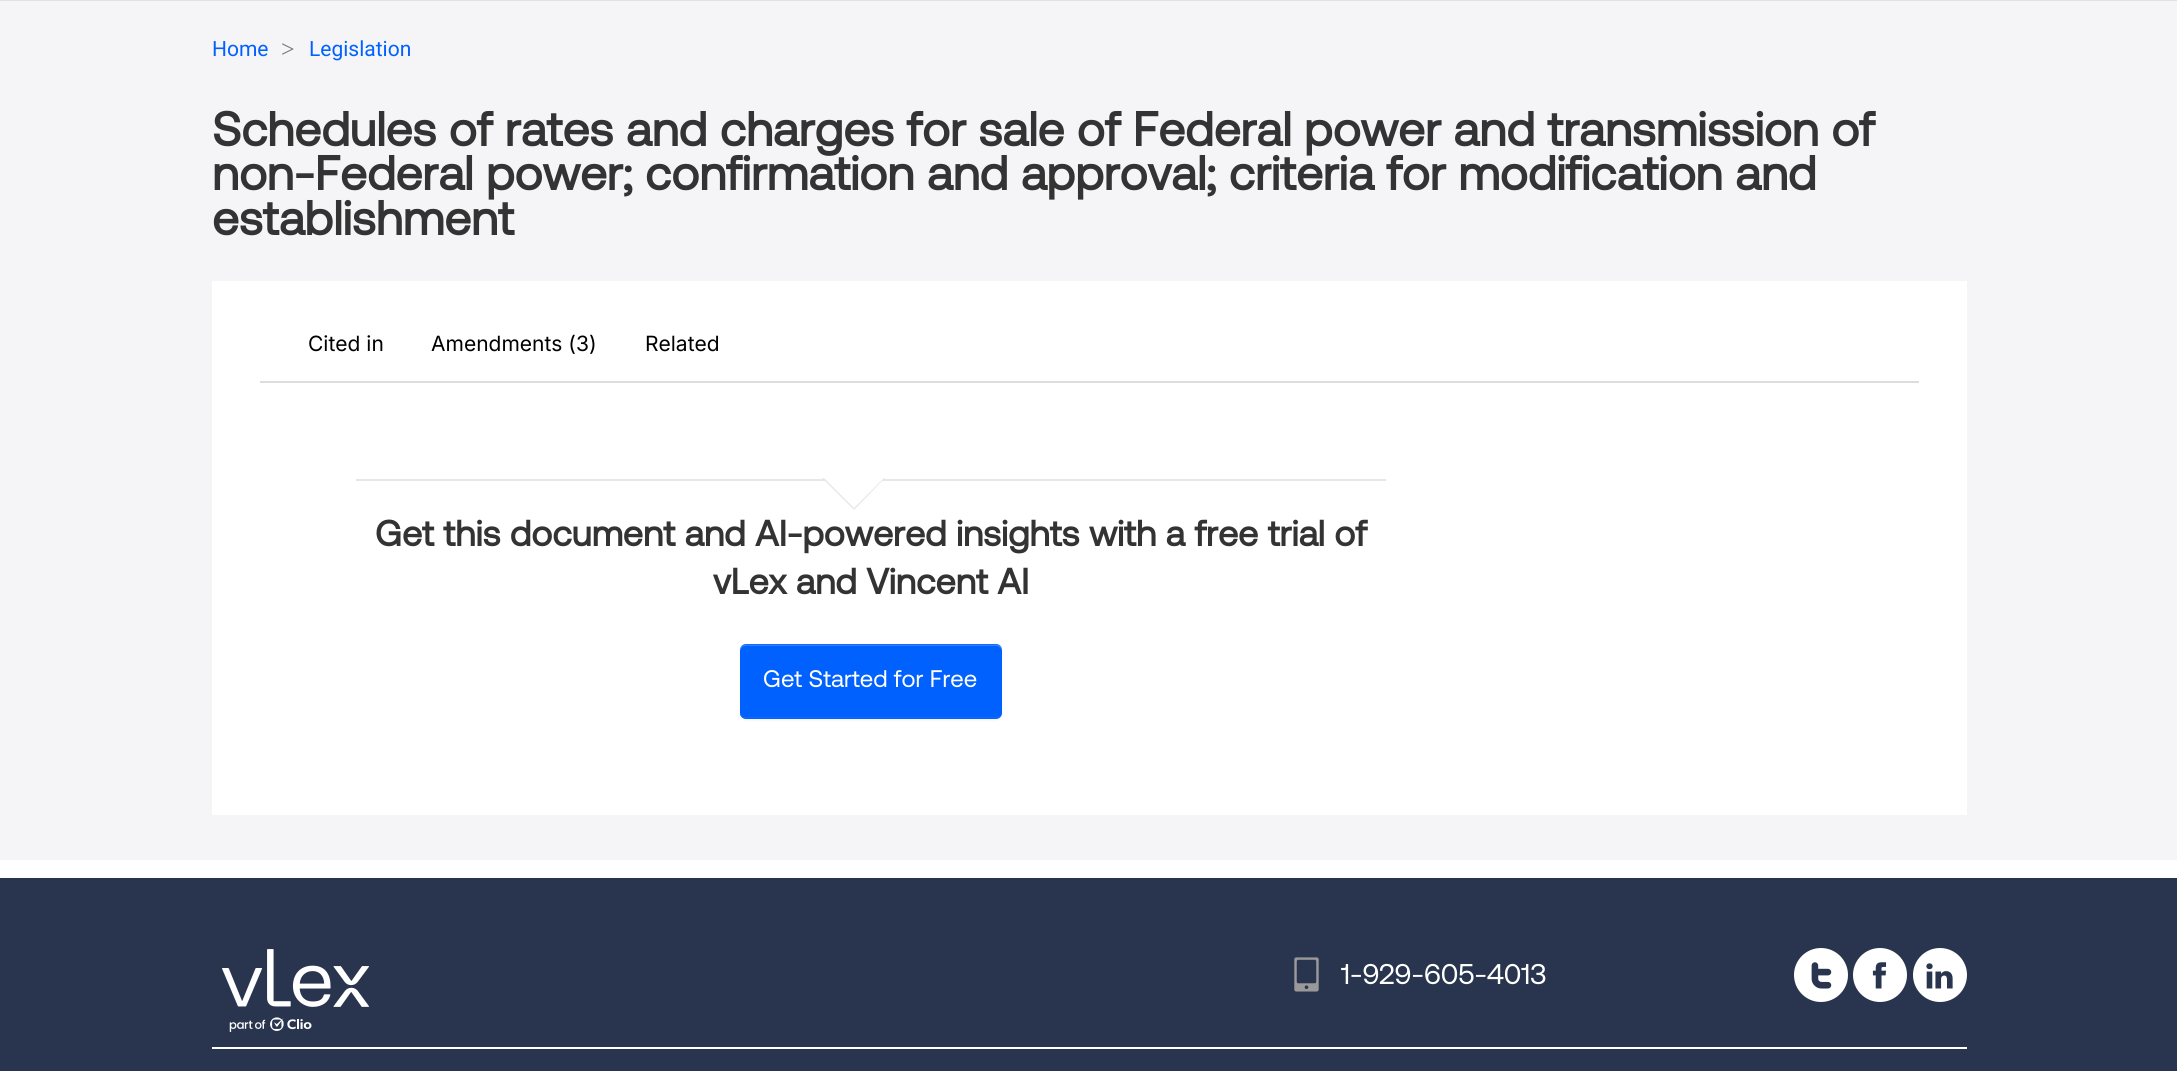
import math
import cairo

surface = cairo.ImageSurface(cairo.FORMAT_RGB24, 2177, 1071)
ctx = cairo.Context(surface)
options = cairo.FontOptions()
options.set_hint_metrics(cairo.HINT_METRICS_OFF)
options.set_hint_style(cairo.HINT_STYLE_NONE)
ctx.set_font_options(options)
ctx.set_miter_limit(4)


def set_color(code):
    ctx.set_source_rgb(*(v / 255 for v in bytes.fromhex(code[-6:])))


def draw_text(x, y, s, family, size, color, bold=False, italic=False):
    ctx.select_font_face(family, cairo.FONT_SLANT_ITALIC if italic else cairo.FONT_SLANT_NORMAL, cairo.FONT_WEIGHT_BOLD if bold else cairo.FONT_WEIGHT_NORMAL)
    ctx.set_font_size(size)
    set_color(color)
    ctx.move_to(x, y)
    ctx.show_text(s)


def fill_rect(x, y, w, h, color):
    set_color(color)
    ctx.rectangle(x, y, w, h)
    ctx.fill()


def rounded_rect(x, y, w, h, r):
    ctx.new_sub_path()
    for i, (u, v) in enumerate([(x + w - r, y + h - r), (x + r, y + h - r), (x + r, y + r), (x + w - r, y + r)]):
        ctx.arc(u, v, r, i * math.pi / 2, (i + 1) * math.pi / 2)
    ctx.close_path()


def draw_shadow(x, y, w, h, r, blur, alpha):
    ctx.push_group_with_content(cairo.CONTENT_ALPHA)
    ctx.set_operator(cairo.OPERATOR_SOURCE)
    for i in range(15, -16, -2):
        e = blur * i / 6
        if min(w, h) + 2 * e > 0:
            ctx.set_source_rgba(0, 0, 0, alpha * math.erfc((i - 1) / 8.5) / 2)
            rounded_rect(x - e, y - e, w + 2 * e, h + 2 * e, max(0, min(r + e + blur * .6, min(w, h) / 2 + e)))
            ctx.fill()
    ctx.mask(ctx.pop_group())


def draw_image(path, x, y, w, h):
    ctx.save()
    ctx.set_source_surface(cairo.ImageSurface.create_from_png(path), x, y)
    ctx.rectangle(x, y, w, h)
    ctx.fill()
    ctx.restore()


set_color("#ffffff")
ctx.paint()
fill_rect(0, 0, 2177, 1, "#e1e1e1")
fill_rect(0, 1, 2177, 859, "#f5f5f7")
draw_text(212, 56, "Home", "Roboto", 21, "#0161ff")
draw_text(281, 57, ">", "Liberation Serif", 24, "#71717a")
draw_text(309, 56, "Legislation", "Roboto", 21, "#0161ff")
draw_text(212, 146, "Schedules of rates and charges for sale of Federal power and transmission of", "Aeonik", 48, "#333333", bold=True)
draw_text(212, 190, "non-Federal power; confirmation and approval; criteria for modification and", "Aeonik", 48, "#333333", bold=True)
draw_text(212, 235, "establishment", "Aeonik", 48, "#333333", bold=True)
fill_rect(212, 281, 1755, 534, "#ffffff")
fill_rect(260, 381, 1659, 2, "#dddddd")
draw_text(308, 351, "Cited in", "Inter", 21, "#000000")
draw_text(431, 351, "Amendments (3)", "Inter", 21, "#000000")
draw_text(645, 351, "Related", "Inter", 21, "#000000")
fill_rect(356, 479, 1030, 2, "#e7e7e7")
ctx.new_path()
ctx.move_to(822, 478)
ctx.line_to(885, 478)
ctx.line_to(854, 510)
ctx.close_path()
ctx.fill()
set_color("#ffffff")
ctx.new_path()
ctx.move_to(824, 478)
ctx.line_to(884, 478)
ctx.line_to(854, 508)
ctx.close_path()
ctx.fill()
draw_text(375, 546, "Get this document and AI-powered insights with a free trial of", "Aeonik", 36, "#333333", bold=True)
draw_text(713, 594, "vLex and Vincent AI", "Aeonik", 36, "#333333", bold=True)
set_color("#000000")
draw_shadow(740, 645, 262, 75, 6, 1.5, 0.05)
set_color("#0161ff")
rounded_rect(740, 644, 262, 75, 6)
ctx.fill()
ctx.set_source_rgba(1, 1, 1, 0.2)
ctx.new_path()
ctx.move_to(746, 646)
ctx.line_to(996, 646)
ctx.curve_to(999, 646, 1002, 649, 1002, 651)
ctx.line_to(1002, 650)
ctx.curve_to(1002, 647, 999, 645, 996, 645)
ctx.line_to(746, 645)
ctx.curve_to(742, 645, 740, 647, 740, 650)
ctx.line_to(740, 712)
ctx.line_to(740, 714)
ctx.line_to(740, 662)
ctx.curve_to(740, 656, 738, 646, 746, 646)
ctx.close_path()
ctx.fill()
ctx.set_source_rgba(0.659, 0.796, 1, 0.1)
ctx.new_path()
ctx.move_to(746, 644)
ctx.curve_to(742, 644, 740, 646, 740, 650)
ctx.curve_to(740, 647, 742, 645, 746, 645)
ctx.line_to(996, 645)
ctx.curve_to(999, 645, 1002, 647, 1002, 650)
ctx.curve_to(1002, 646, 999, 644, 996, 644)
ctx.close_path()
ctx.fill()
set_color("#116afb")
ctx.new_path()
ctx.move_to(996, 718)
ctx.curve_to(999, 718, 1002, 716, 1002, 712)
ctx.curve_to(1002, 715, 999, 717, 996, 717)
ctx.line_to(746, 717)
ctx.curve_to(742, 717, 740, 715, 740, 712)
ctx.curve_to(740, 716, 742, 718, 746, 718)
ctx.close_path()
ctx.fill()
draw_text(763, 687, "Get Started for Free", "Aeonik", 24, "#ffffff")
fill_rect(0, 878, 2177, 193, "#29354e")
fill_rect(212, 1047, 1755, 2, "#ffffff")
draw_image("assets/img1.png", 222, 949, 147, 83)
draw_image("assets/img2.png", 1294, 957, 25, 35)
draw_text(1341, 984, "1-929-605-4013", "Aeonik", 28.5, "#ffffff")
ctx.new_path()
ctx.arc(1821, 975, 27, 0, 2 * math.pi)
ctx.fill()
draw_image("assets/img3.png", 1811, 962, 21, 27)
ctx.arc(1880, 975, 27, 0, 2 * math.pi)
ctx.fill()
draw_image("assets/img4.png", 1872, 962, 15, 27)
ctx.arc(1940, 975, 27, 0, 2 * math.pi)
ctx.fill()
draw_image("assets/img5.png", 1926, 963, 27, 26)
surface.write_to_png("output.png")
